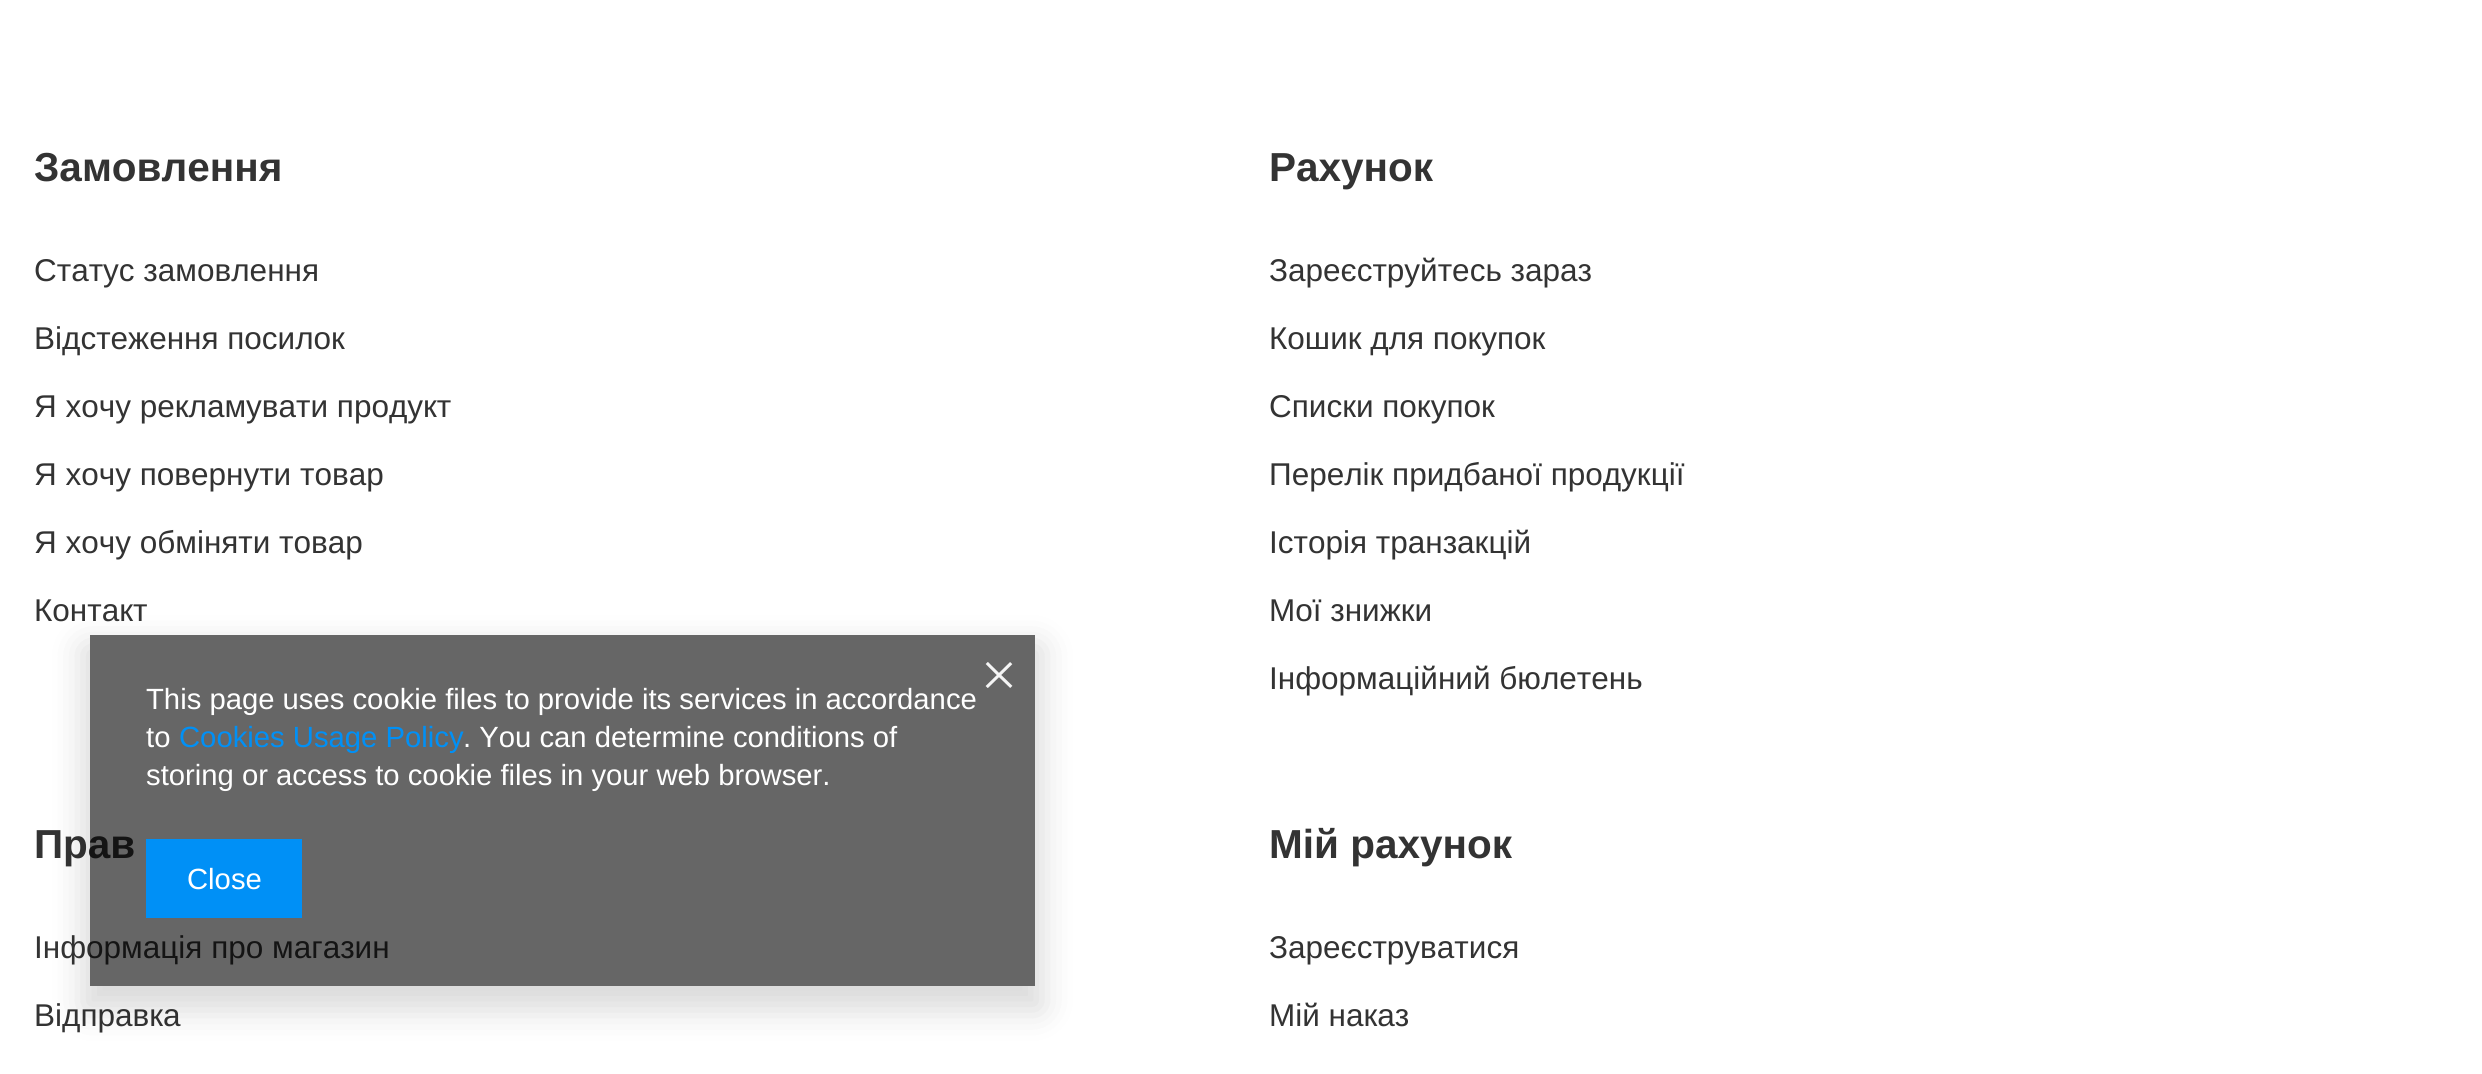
import math
import cairo

surface = cairo.ImageSurface(cairo.FORMAT_RGB24, 2482, 1074)
ctx = cairo.Context(surface)
options = cairo.FontOptions()
options.set_hint_metrics(cairo.HINT_METRICS_OFF)
options.set_hint_style(cairo.HINT_STYLE_NONE)
ctx.set_font_options(options)
ctx.set_miter_limit(4)


def set_color(code):
    ctx.set_source_rgb(*(v / 255 for v in bytes.fromhex(code[-6:])))


def draw_text(x, y, s, family, size, color, bold=False, italic=False):
    ctx.select_font_face(family, cairo.FONT_SLANT_ITALIC if italic else cairo.FONT_SLANT_NORMAL, cairo.FONT_WEIGHT_BOLD if bold else cairo.FONT_WEIGHT_NORMAL)
    ctx.set_font_size(size)
    set_color(color)
    ctx.move_to(x, y)
    ctx.show_text(s)


def fill_rect(x, y, w, h, color):
    set_color(color)
    ctx.rectangle(x, y, w, h)
    ctx.fill()


def rounded_rect(x, y, w, h, r):
    ctx.new_sub_path()
    for i, (u, v) in enumerate([(x + w - r, y + h - r), (x + r, y + h - r), (x + r, y + r), (x + w - r, y + r)]):
        ctx.arc(u, v, r, i * math.pi / 2, (i + 1) * math.pi / 2)
    ctx.close_path()


def draw_shadow(x, y, w, h, r, blur, alpha):
    ctx.push_group_with_content(cairo.CONTENT_ALPHA)
    ctx.set_operator(cairo.OPERATOR_SOURCE)
    for i in range(15, -16, -2):
        e = blur * i / 6
        if min(w, h) + 2 * e > 0:
            ctx.set_source_rgba(0, 0, 0, alpha * math.erfc((i - 1) / 8.5) / 2)
            rounded_rect(x - e, y - e, w + 2 * e, h + 2 * e, max(0, min(r + e + blur * .6, min(w, h) / 2 + e)))
            ctx.fill()
    ctx.mask(ctx.pop_group())


def draw_image(path, x, y, w, h):
    ctx.save()
    ctx.set_source_surface(cairo.ImageSurface.create_from_png(path), x, y)
    ctx.rectangle(x, y, w, h)
    ctx.fill()
    ctx.restore()


set_color("#ffffff")
ctx.paint()
draw_text(34, 181, "Замовлення", "Liberation Sans", 40.5, "#333333", bold=True)
draw_text(34, 281, "Статус замовлення", "Liberation Sans", 31.5, "#333333")
draw_text(34, 349, "Відстеження посилок", "Liberation Sans", 31.5, "#333333")
draw_text(34, 417, "Я хочу рекламувати продукт", "Liberation Sans", 31.5, "#333333")
draw_text(34, 485, "Я хочу повернути товар", "Liberation Sans", 31.5, "#333333")
draw_text(34, 553, "Я хочу обміняти товар", "Liberation Sans", 31.5, "#333333")
draw_text(34, 621, "Контакт", "Liberation Sans", 31.5, "#333333")
draw_text(1269, 181, "Рахунок", "Liberation Sans", 40.5, "#333333", bold=True)
draw_text(1269, 281, "Зареєструйтесь зараз", "Liberation Sans", 31.5, "#333333")
draw_text(1269, 349, "Кошик для покупок", "Liberation Sans", 31.5, "#333333")
draw_text(1269, 417, "Списки покупок", "Liberation Sans", 31.5, "#333333")
draw_text(1269, 485, "Перелік придбаної продукції", "Liberation Sans", 31.5, "#333333")
draw_text(1269, 553, "Історія транзакцій", "Liberation Sans", 31.5, "#333333")
draw_text(1269, 621, "Мої знижки", "Liberation Sans", 31.5, "#333333")
draw_text(1269, 689, "Інформаційний бюлетень", "Liberation Sans", 31.5, "#333333")
draw_text(34, 858, "Прав", "Liberation Sans", 40.5, "#333333", bold=True)
draw_text(34, 958, "Інформація про магазин", "Liberation Sans", 31.5, "#333333")
draw_text(34, 1026, "Відправка", "Liberation Sans", 31.5, "#333333")
draw_text(1269, 858, "Мій рахунок", "Liberation Sans", 40.5, "#333333", bold=True)
draw_text(1269, 958, "Зареєструватися", "Liberation Sans", 31.5, "#333333")
draw_text(1269, 1026, "Мій наказ", "Liberation Sans", 31.5, "#333333")
ctx.save()
ctx.set_fill_rule(cairo.FILL_RULE_EVEN_ODD)
ctx.new_path()
ctx.move_to(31, 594)
ctx.line_to(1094, 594)
ctx.line_to(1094, 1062)
ctx.line_to(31, 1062)
ctx.close_path()
ctx.move_to(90, 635)
ctx.line_to(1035, 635)
ctx.line_to(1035, 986)
ctx.line_to(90, 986)
ctx.close_path()
ctx.clip()
set_color("#000000")
draw_shadow(83, 646, 959, 364, 0, 17, 0.15)
ctx.restore()
ctx.set_source_rgba(0, 0, 0, 0.6)
ctx.rectangle(90, 635, 945, 351)
ctx.fill()
draw_image("assets/img1.png", 985, 662, 28, 26)
draw_text(146, 709, "This page uses cookie files to provide its services in accordance", "Liberation Sans", 29.25, "#ffffff")
draw_text(146, 747, "to", "Liberation Sans", 29.25, "#ffffff")
draw_text(179, 747, "Cookies Usage Policy", "Liberation Sans", 29.25, "#0090f6")
draw_text(463, 747, ". You can determine conditions of", "Liberation Sans", 29.25, "#ffffff")
draw_text(146, 785, "storing or access to cookie files in your web browser.", "Liberation Sans", 29.25, "#ffffff")
fill_rect(146, 839, 156, 79, "#0090f6")
draw_text(187, 889, "Close", "Liberation Sans", 29.25, "#ffffff")
surface.write_to_png("output.png")
